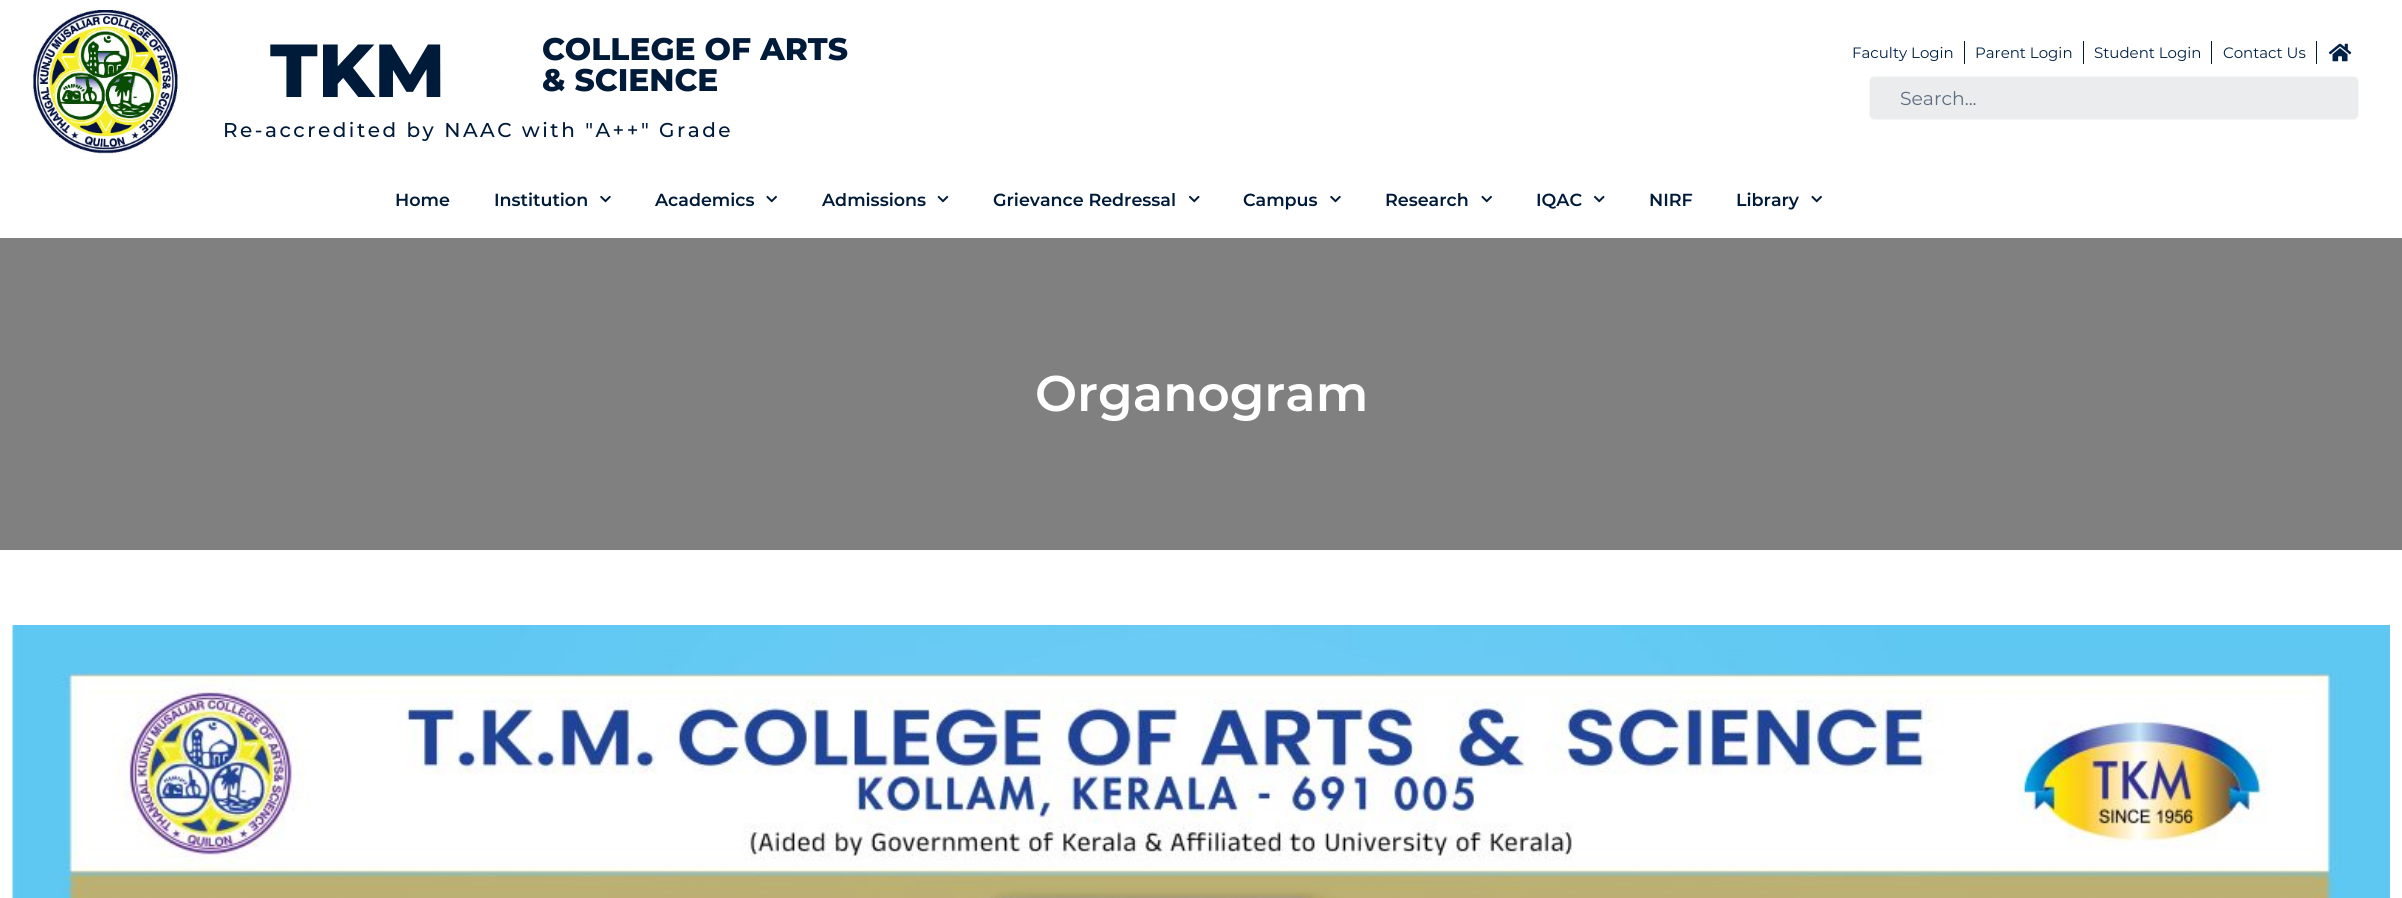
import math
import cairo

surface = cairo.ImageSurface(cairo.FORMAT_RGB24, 2402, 898)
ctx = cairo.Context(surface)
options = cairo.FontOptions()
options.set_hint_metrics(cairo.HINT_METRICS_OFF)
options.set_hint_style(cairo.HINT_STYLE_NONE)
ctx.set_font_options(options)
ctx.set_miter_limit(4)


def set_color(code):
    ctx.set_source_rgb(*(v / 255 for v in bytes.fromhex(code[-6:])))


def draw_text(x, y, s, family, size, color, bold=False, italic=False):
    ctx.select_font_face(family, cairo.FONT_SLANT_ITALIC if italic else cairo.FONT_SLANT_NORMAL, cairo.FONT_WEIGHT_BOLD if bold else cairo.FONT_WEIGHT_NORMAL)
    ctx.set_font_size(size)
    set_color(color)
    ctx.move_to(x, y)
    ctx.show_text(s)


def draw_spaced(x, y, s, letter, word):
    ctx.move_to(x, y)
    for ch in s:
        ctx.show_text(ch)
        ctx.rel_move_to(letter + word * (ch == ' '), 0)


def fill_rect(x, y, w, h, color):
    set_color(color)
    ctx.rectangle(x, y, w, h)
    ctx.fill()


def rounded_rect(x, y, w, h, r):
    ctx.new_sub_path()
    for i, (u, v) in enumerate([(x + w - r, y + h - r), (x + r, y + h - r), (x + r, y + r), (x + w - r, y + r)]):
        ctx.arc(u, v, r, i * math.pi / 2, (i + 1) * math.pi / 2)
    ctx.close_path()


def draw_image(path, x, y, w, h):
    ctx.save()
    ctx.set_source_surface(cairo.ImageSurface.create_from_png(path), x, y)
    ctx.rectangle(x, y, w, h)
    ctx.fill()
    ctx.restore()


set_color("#ffffff")
ctx.paint()
draw_image("assets/img1.png", 32, 9, 147, 145)
draw_text(270, 97, "TKM", "Montserrat ExtraBold", 75, "#001a39")
draw_text(542, 60, "COLLEGE OF ARTS", "Montserrat ExtraBold", 31.25, "#001a39")
draw_text(542, 91, "& SCIENCE", "Montserrat ExtraBold", 31.25, "#001a39")
ctx.select_font_face("Montserrat Medium")
ctx.set_font_size(20)
draw_spaced(223, 137, "Re-accredited by NAAC with \"A++\" Grade", 2.5, 0)
draw_text(1852, 58, "Faculty Login", "Montserrat", 15, "#002147")
fill_rect(1964, 41, 1, 23, "#001a39")
draw_text(1975, 58, "Parent Login", "Montserrat", 15, "#002147")
fill_rect(2083, 41, 1, 23, "#001a39")
draw_text(2094, 58, "Student Login", "Montserrat", 15, "#002147")
fill_rect(2211, 41, 1, 23, "#001a39")
draw_text(2223, 58, "Contact Us", "Montserrat", 15, "#002147")
fill_rect(2316, 41, 1, 23, "#001a39")
draw_image("assets/img2.png", 2328, 43, 24, 19)
set_color("#ebeced")
rounded_rect(1869, 76, 490, 44, 6)
ctx.fill()
rounded_rect(1869.5, 76.5, 489, 43, 5.5)
ctx.set_source_rgba(1, 1, 1, 0.55)
ctx.set_line_width(1)
ctx.stroke()
draw_text(1900, 105, "Search...", "Montserrat", 18.75, "#5e6e81")
draw_text(395, 206, "Home", "Montserrat SemiBold", 17.5, "#001a39")
draw_text(494, 206, "Institution", "Montserrat SemiBold", 17.5, "#001a39")
draw_image("assets/img3.png", 600, 195, 11, 8)
draw_text(655, 206, "Academics", "Montserrat SemiBold", 17.5, "#001a39")
draw_image("assets/img4.png", 766, 195, 11, 8)
draw_text(822, 206, "Admissions", "Montserrat SemiBold", 17.5, "#001a39")
draw_image("assets/img5.png", 937, 195, 12, 8)
draw_text(993, 206, "Grievance Redressal", "Montserrat SemiBold", 17.5, "#001a39")
draw_image("assets/img6.png", 1189, 195, 11, 8)
draw_text(1243, 206, "Campus", "Montserrat SemiBold", 17.5, "#001a39")
draw_image("assets/img3.png", 1330, 195, 11, 8)
draw_text(1385, 206, "Research", "Montserrat SemiBold", 17.5, "#001a39")
draw_image("assets/img4.png", 1481, 195, 11, 8)
draw_text(1536, 206, "IQAC", "Montserrat SemiBold", 17.5, "#001a39")
draw_image("assets/img6.png", 1594, 195, 11, 8)
draw_text(1649, 206, "NIRF", "Montserrat SemiBold", 17.5, "#001a39")
draw_text(1736, 206, "Library", "Montserrat SemiBold", 17.5, "#001a39")
draw_image("assets/img4.png", 1811, 195, 11, 8)
fill_rect(0, 238, 2402, 312, "#808080")
draw_text(1035, 411, "Organogram", "Montserrat SemiBold", 50, "#ffffff")
draw_image("assets/img7.png", 12, 625, 2378, 273)
surface.write_to_png("output.png")
